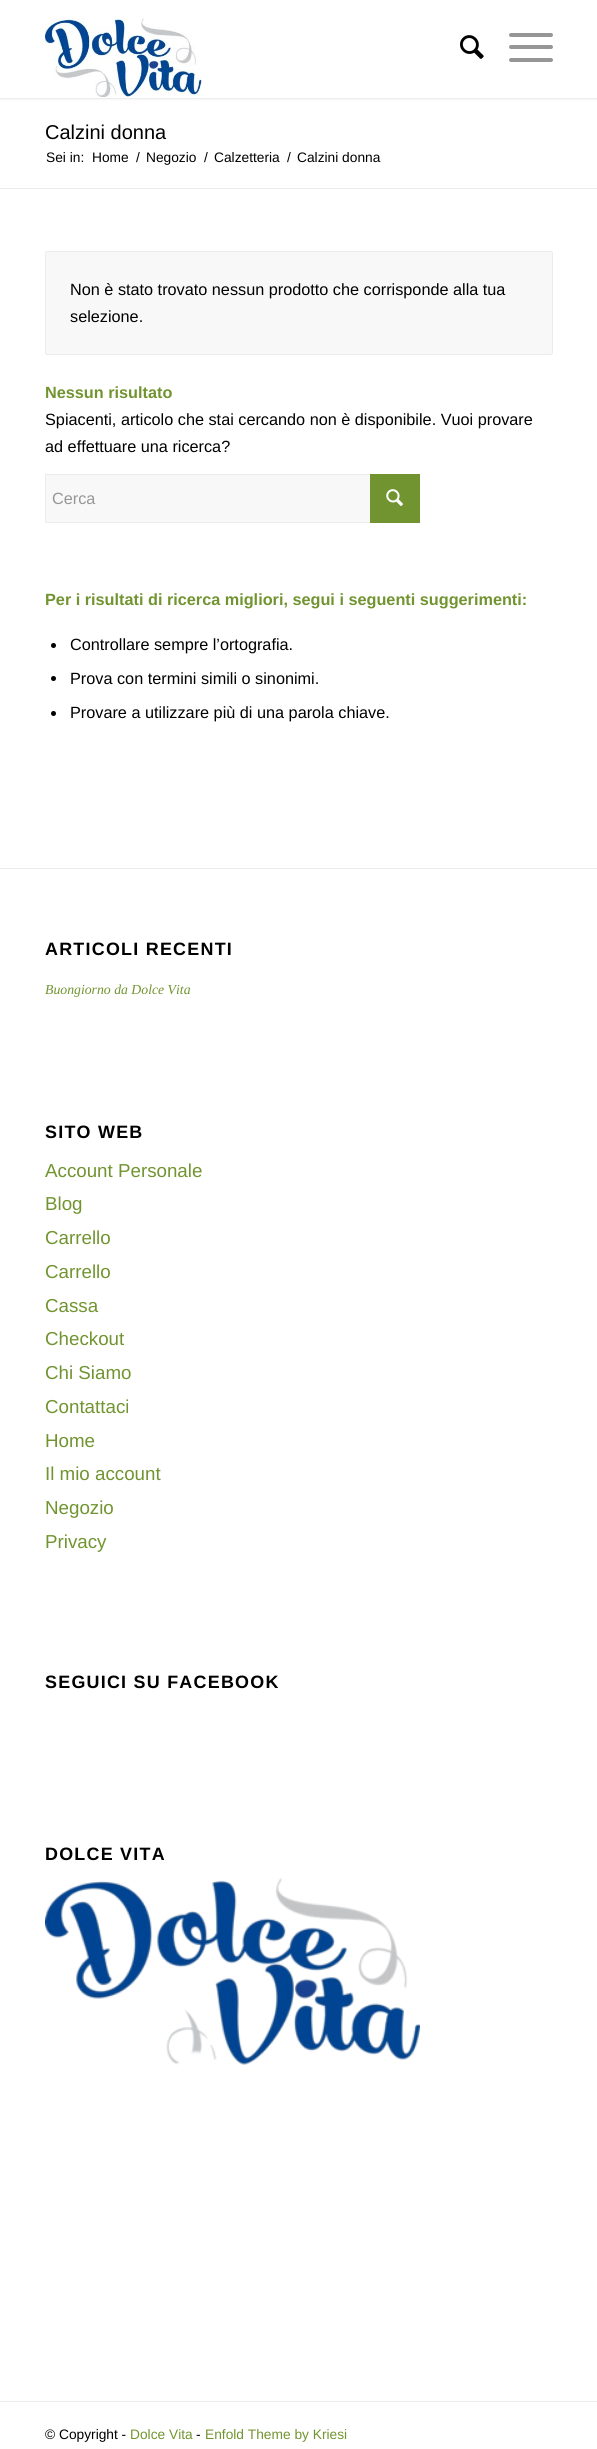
import math
import cairo

surface = cairo.ImageSurface(cairo.FORMAT_RGB24, 597, 2449)
ctx = cairo.Context(surface)
options = cairo.FontOptions()
options.set_hint_metrics(cairo.HINT_METRICS_OFF)
options.set_hint_style(cairo.HINT_STYLE_NONE)
ctx.set_font_options(options)
ctx.set_miter_limit(4)


def set_color(code):
    ctx.set_source_rgb(*(v / 255 for v in bytes.fromhex(code[-6:])))


def draw_text(x, y, s, family, size, color, bold=False, italic=False):
    ctx.select_font_face(family, cairo.FONT_SLANT_ITALIC if italic else cairo.FONT_SLANT_NORMAL, cairo.FONT_WEIGHT_BOLD if bold else cairo.FONT_WEIGHT_NORMAL)
    ctx.set_font_size(size)
    set_color(color)
    ctx.move_to(x, y)
    ctx.show_text(s)


def draw_spaced(x, y, s, letter, word):
    ctx.move_to(x, y)
    for ch in s:
        ctx.show_text(ch)
        ctx.rel_move_to(letter + word * (ch == ' '), 0)


def fill_rect(x, y, w, h, color):
    set_color(color)
    ctx.rectangle(x, y, w, h)
    ctx.fill()


def rounded_rect(x, y, w, h, r):
    ctx.new_sub_path()
    for i, (u, v) in enumerate([(x + w - r, y + h - r), (x + r, y + h - r), (x + r, y + r), (x + w - r, y + r)]):
        ctx.arc(u, v, r, i * math.pi / 2, (i + 1) * math.pi / 2)
    ctx.close_path()


def draw_shadow(x, y, w, h, r, blur, alpha):
    ctx.push_group_with_content(cairo.CONTENT_ALPHA)
    ctx.set_operator(cairo.OPERATOR_SOURCE)
    for i in range(15, -16, -2):
        e = blur * i / 6
        if min(w, h) + 2 * e > 0:
            ctx.set_source_rgba(0, 0, 0, alpha * math.erfc((i - 1) / 8.5) / 2)
            rounded_rect(x - e, y - e, w + 2 * e, h + 2 * e, max(0, min(r + e + blur * .6, min(w, h) / 2 + e)))
            ctx.fill()
    ctx.mask(ctx.pop_group())


def draw_image(path, x, y, w, h):
    ctx.save()
    ctx.set_source_surface(cairo.ImageSurface.create_from_png(path), x, y)
    ctx.rectangle(x, y, w, h)
    ctx.fill()
    ctx.restore()


set_color("#ffffff")
ctx.paint()
set_color("#000000")
draw_shadow(-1, -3, 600, 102, 0, 1, 0.1)
fill_rect(0, 0, 597, 98, "#ffffff")
draw_image("assets/img1.png", 45, 18, 157, 79)
draw_image("assets/img2.png", 460, 35, 24, 24)
set_color("#969696")
rounded_rect(509, 45, 44, 4, 2)
ctx.fill()
rounded_rect(509, 33, 44, 4, 2)
ctx.fill()
rounded_rect(509, 58, 44, 4, 2)
ctx.fill()
draw_text(45, 139, "Calzini donna", "Liberation Sans", 20, "#000000")
draw_text(46, 162, "Sei in:", "Liberation Sans", 13.75, "#000000")
draw_text(92, 162, "Home", "Liberation Sans", 13.75, "#000000")
draw_text(136, 162, "/", "Liberation Sans", 13.75, "#000000")
draw_text(146, 162, "Negozio", "Liberation Sans", 13.75, "#000000")
draw_text(204, 162, "/", "Liberation Sans", 13.75, "#000000")
draw_text(214, 162, "Calzetteria", "Liberation Sans", 13.75, "#000000")
draw_text(287, 162, "/", "Liberation Sans", 13.75, "#000000")
draw_text(297, 162, "Calzini donna", "Liberation Sans", 13.75, "#000000")
fill_rect(0, 188, 597, 1, "#ebebeb")
set_color("#f8f8f8")
rounded_rect(45.5, 251.5, 507, 103, 2)
ctx.fill_preserve()
set_color("#ebebeb")
ctx.set_line_width(1)
ctx.stroke()
draw_text(70, 295, "Non è stato trovato nessun prodotto che corrisponde alla tua", "Liberation Sans", 16.25, "#000000")
draw_text(70, 322, "selezione.", "Liberation Sans", 16.25, "#000000")
draw_text(45, 398, "Nessun risultato", "Liberation Sans", 16.25, "#719430", bold=True)
draw_text(45, 425, "Spiacenti, articolo che stai cercando non è disponibile. Vuoi provare", "Liberation Sans", 16.25, "#000000")
draw_text(45, 452, "ad effettuare una ricerca?", "Liberation Sans", 16.25, "#000000")
fill_rect(46, 475, 324, 47, "#f8f8f8")
ctx.rectangle(45.5, 474.5, 374, 48)
set_color("#ebebeb")
ctx.stroke()
draw_text(52, 504, "Cerca", "Liberation Sans", 16.25, "#969696")
fill_rect(370, 474, 50, 49, "#719430")
draw_image("assets/img3.png", 386, 489, 17, 17)
draw_text(45, 605, "Per i risultati di ricerca migliori, segui i seguenti suggerimenti:", "Liberation Sans", 16.25, "#719430", bold=True)
set_color("#000000")
ctx.new_path()
ctx.arc(53.5, 645.5, 2.5, 0, 2 * math.pi)
ctx.fill()
draw_text(70, 650, "Controllare sempre l’ortografia.", "Liberation Sans", 16.25, "#000000")
ctx.new_path()
ctx.arc(53.5, 678.5, 2.5, 0, 2 * math.pi)
ctx.fill()
draw_text(70, 684, "Prova con termini simili o sinonimi.", "Liberation Sans", 16.25, "#000000")
ctx.new_path()
ctx.arc(53.5, 713.5, 2.5, 0, 2 * math.pi)
ctx.fill()
draw_text(70, 718, "Provare a utilizzare più di una parola chiave.", "Liberation Sans", 16.25, "#000000")
fill_rect(0, 868, 597, 1, "#ebebeb")
ctx.select_font_face("Liberation Sans", cairo.FONT_SLANT_NORMAL, cairo.FONT_WEIGHT_BOLD)
ctx.set_font_size(17.9)
set_color("#000000")
draw_spaced(45, 955, "ARTICOLI RECENTI", 1.25, 0)
draw_text(45, 994, "Buongiorno da Dolce Vita", "Liberation Serif", 13.75, "#719430", italic=True)
ctx.select_font_face("Liberation Sans", cairo.FONT_SLANT_NORMAL, cairo.FONT_WEIGHT_BOLD)
ctx.set_font_size(17.9)
set_color("#000000")
draw_spaced(45, 1138, "SITO WEB", 1.25, 0)
draw_text(45, 1177, "Account Personale", "Liberation Sans", 18.75, "#719430")
draw_text(45, 1210, "Blog", "Liberation Sans", 18.75, "#719430")
draw_text(45, 1244, "Carrello", "Liberation Sans", 18.75, "#719430")
draw_text(45, 1278, "Carrello", "Liberation Sans", 18.75, "#719430")
draw_text(45, 1312, "Cassa", "Liberation Sans", 18.75, "#719430")
draw_text(45, 1345, "Checkout", "Liberation Sans", 18.75, "#719430")
draw_text(45, 1379, "Chi Siamo", "Liberation Sans", 18.75, "#719430")
draw_text(45, 1413, "Contattaci", "Liberation Sans", 18.75, "#719430")
draw_text(45, 1447, "Home", "Liberation Sans", 18.75, "#719430")
draw_text(45, 1480, "Il mio account", "Liberation Sans", 18.75, "#719430")
draw_text(45, 1514, "Negozio", "Liberation Sans", 18.75, "#719430")
draw_text(45, 1548, "Privacy", "Liberation Sans", 18.75, "#719430")
ctx.select_font_face("Liberation Sans", cairo.FONT_SLANT_NORMAL, cairo.FONT_WEIGHT_BOLD)
ctx.set_font_size(17.9)
set_color("#000000")
draw_spaced(45, 1688, "SEGUICI SU FACEBOOK", 1.25, 0)
draw_spaced(45, 1860, "DOLCE VITA", 1.25, 0)
draw_image("assets/img4.png", 45, 1878, 375, 187)
fill_rect(0, 2401, 597, 1, "#ebebeb")
draw_text(45, 2439, "© Copyright -", "Liberation Sans", 13.75, "#000000")
draw_text(130, 2439, "Dolce Vita", "Liberation Sans", 13.75, "#719430")
draw_text(196, 2439, "-", "Liberation Sans", 13.75, "#000000")
draw_text(205, 2439, "Enfold Theme by Kriesi", "Liberation Sans", 13.75, "#719430")
surface.write_to_png("output.png")
